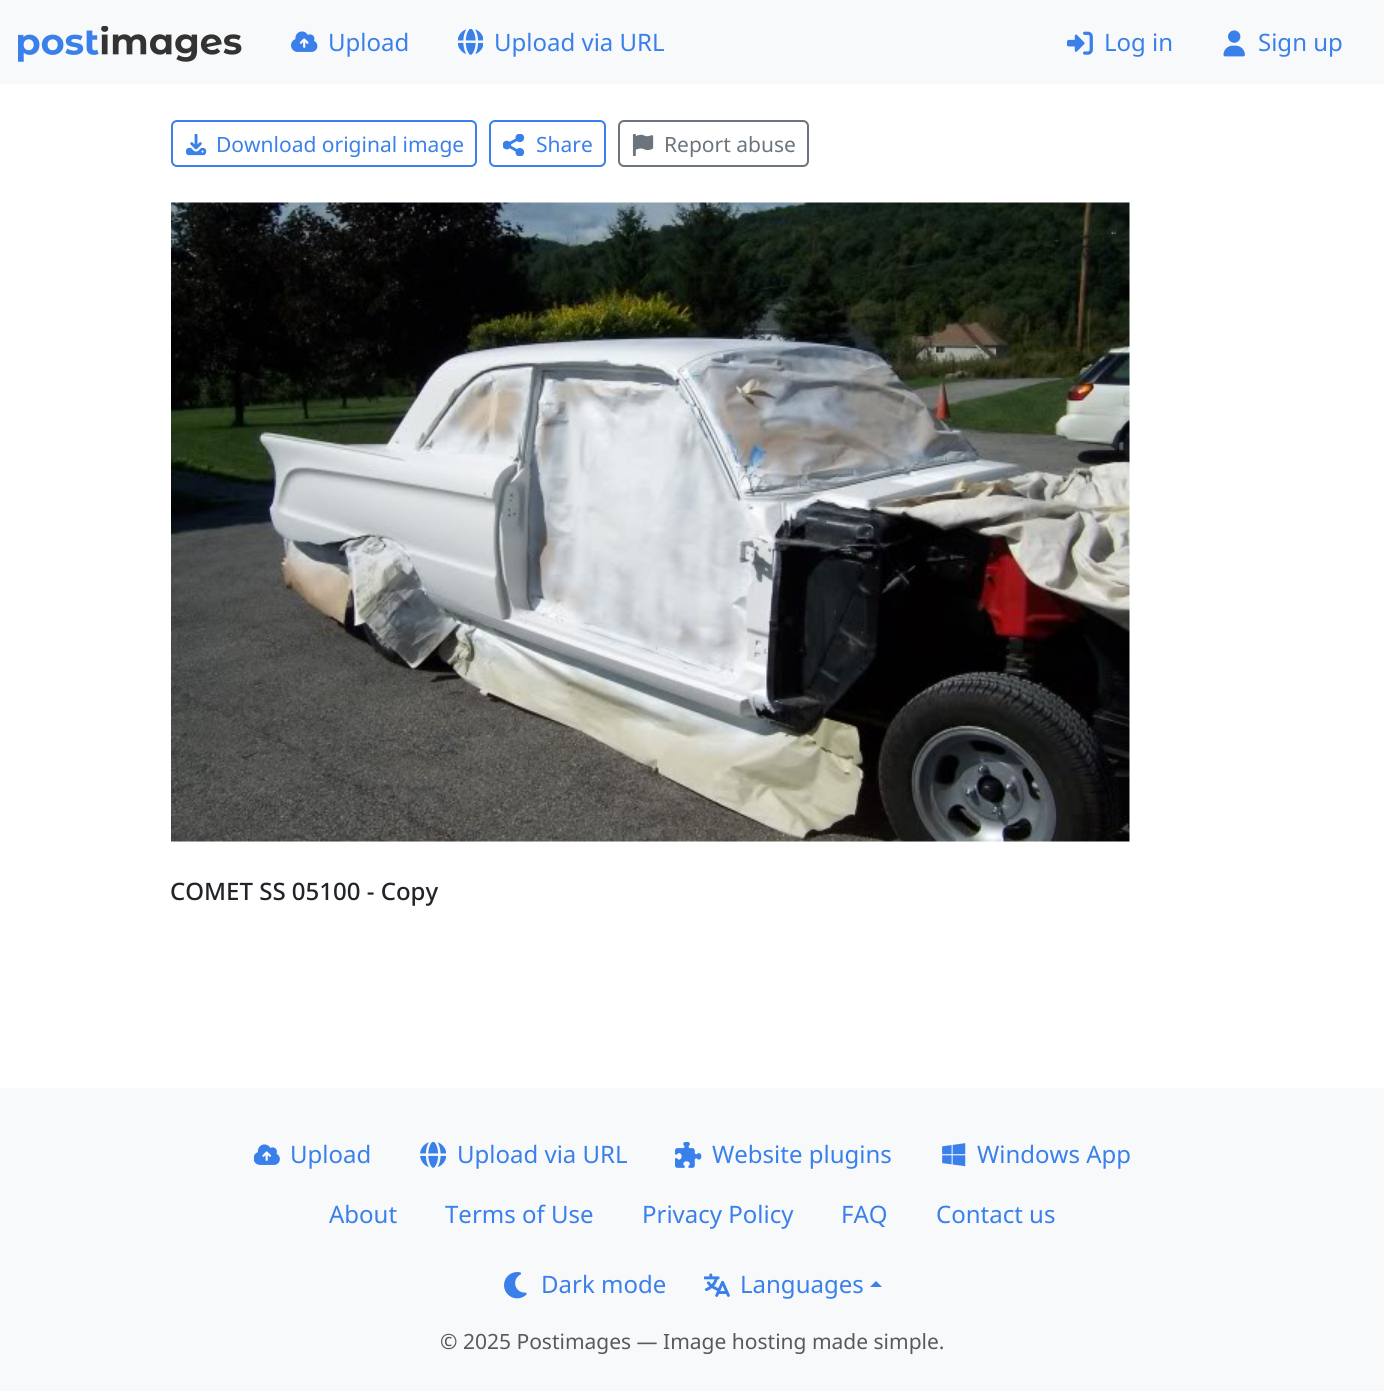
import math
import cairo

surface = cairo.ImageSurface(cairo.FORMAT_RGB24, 1384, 1391)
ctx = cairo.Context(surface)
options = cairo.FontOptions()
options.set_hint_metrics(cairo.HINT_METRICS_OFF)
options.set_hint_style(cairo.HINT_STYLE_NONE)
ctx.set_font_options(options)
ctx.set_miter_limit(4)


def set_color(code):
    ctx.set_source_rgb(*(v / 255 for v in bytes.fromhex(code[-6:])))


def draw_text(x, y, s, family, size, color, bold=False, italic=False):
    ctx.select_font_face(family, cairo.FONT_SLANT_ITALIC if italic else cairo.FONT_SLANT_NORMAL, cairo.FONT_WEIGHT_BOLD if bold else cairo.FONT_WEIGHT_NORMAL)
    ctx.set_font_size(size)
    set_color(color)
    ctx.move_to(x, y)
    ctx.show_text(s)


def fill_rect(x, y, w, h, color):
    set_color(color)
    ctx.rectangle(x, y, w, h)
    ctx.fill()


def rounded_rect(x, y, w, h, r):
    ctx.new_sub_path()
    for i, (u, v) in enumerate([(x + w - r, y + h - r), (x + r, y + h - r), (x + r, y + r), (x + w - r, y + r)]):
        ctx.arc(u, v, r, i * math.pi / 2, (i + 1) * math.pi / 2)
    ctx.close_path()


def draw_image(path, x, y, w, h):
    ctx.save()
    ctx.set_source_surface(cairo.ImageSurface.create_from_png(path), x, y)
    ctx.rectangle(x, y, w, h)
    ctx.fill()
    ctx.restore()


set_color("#ffffff")
ctx.paint()
fill_rect(0, 0, 1384, 84, "#f8f9fa")
draw_image("assets/img1.png", 18, 26, 224, 36)
draw_image("assets/img2.png", 291, 31, 27, 21)
draw_text(328, 51, "Upload", "Noto Sans", 24, "#3a80ea")
draw_image("assets/img3.png", 458, 29, 25, 26)
draw_text(494, 51, "Upload via URL", "Noto Sans", 24, "#3a80ea")
draw_image("assets/img4.png", 1067, 31, 26, 24)
draw_text(1104, 51, "Log in", "Noto Sans", 24, "#3a80ea")
draw_image("assets/img5.png", 1223, 30, 22, 27)
draw_text(1258, 51, "Sign up", "Noto Sans", 24, "#3a80ea")
rounded_rect(172, 121, 304, 45, 5)
ctx.stroke()
draw_image("assets/img6.png", 185, 134, 22, 22)
draw_text(216, 152, "Download original image", "Noto Sans", 21, "#3a80ea")
rounded_rect(490, 121, 115, 45, 5)
ctx.stroke()
draw_image("assets/img7.png", 503, 134, 22, 22)
draw_text(536, 152, "Share", "Noto Sans", 21, "#3a80ea")
rounded_rect(619, 121, 189, 45, 5)
set_color("#6c757d")
ctx.stroke()
draw_image("assets/img8.png", 632, 134, 22, 22)
draw_text(664, 152, "Report abuse", "Noto Sans", 21, "#6c757d")
draw_image("assets/img9.png", 171, 202, 959, 640)
draw_text(170, 900, "COMET SS 05100 - Copy", "Noto Sans Medium", 24, "#212529")
fill_rect(0, 1088, 1384, 303, "#f8f9fa")
draw_image("assets/img10.png", 254, 1144, 26, 21)
draw_text(290, 1163, "Upload", "Noto Sans", 24, "#3a80ea")
draw_image("assets/img11.png", 420, 1142, 26, 26)
draw_text(457, 1163, "Upload via URL", "Noto Sans", 24, "#3a80ea")
draw_image("assets/img12.png", 675, 1142, 27, 26)
draw_text(712, 1163, "Website plugins", "Noto Sans", 24, "#3a80ea")
draw_image("assets/img13.png", 942, 1143, 24, 24)
draw_text(977, 1163, "Windows App", "Noto Sans", 24, "#3a80ea")
draw_text(329, 1223, "About", "Noto Sans", 24, "#3a80ea")
draw_text(445, 1223, "Terms of Use", "Noto Sans", 24, "#3a80ea")
draw_text(642, 1223, "Privacy Policy", "Noto Sans", 24, "#3a80ea")
draw_text(841, 1223, "FAQ", "Noto Sans", 24, "#3a80ea")
draw_text(936, 1223, "Contact us", "Noto Sans", 24, "#3a80ea")
draw_image("assets/img14.png", 504, 1272, 23, 27)
draw_text(541, 1293, "Dark mode", "Noto Sans", 24, "#3a80ea")
draw_image("assets/img15.png", 704, 1273, 26, 24)
draw_text(740, 1293, "Languages", "Noto Sans", 24, "#3a80ea")
ctx.new_path()
ctx.move_to(882, 1287)
ctx.line_to(870, 1287)
ctx.line_to(876, 1281)
ctx.close_path()
ctx.fill()
draw_text(440, 1349, "© 2025 Postimages — Image hosting made simple.", "Noto Sans", 21, "#575a5d")
surface.write_to_png("output.png")
